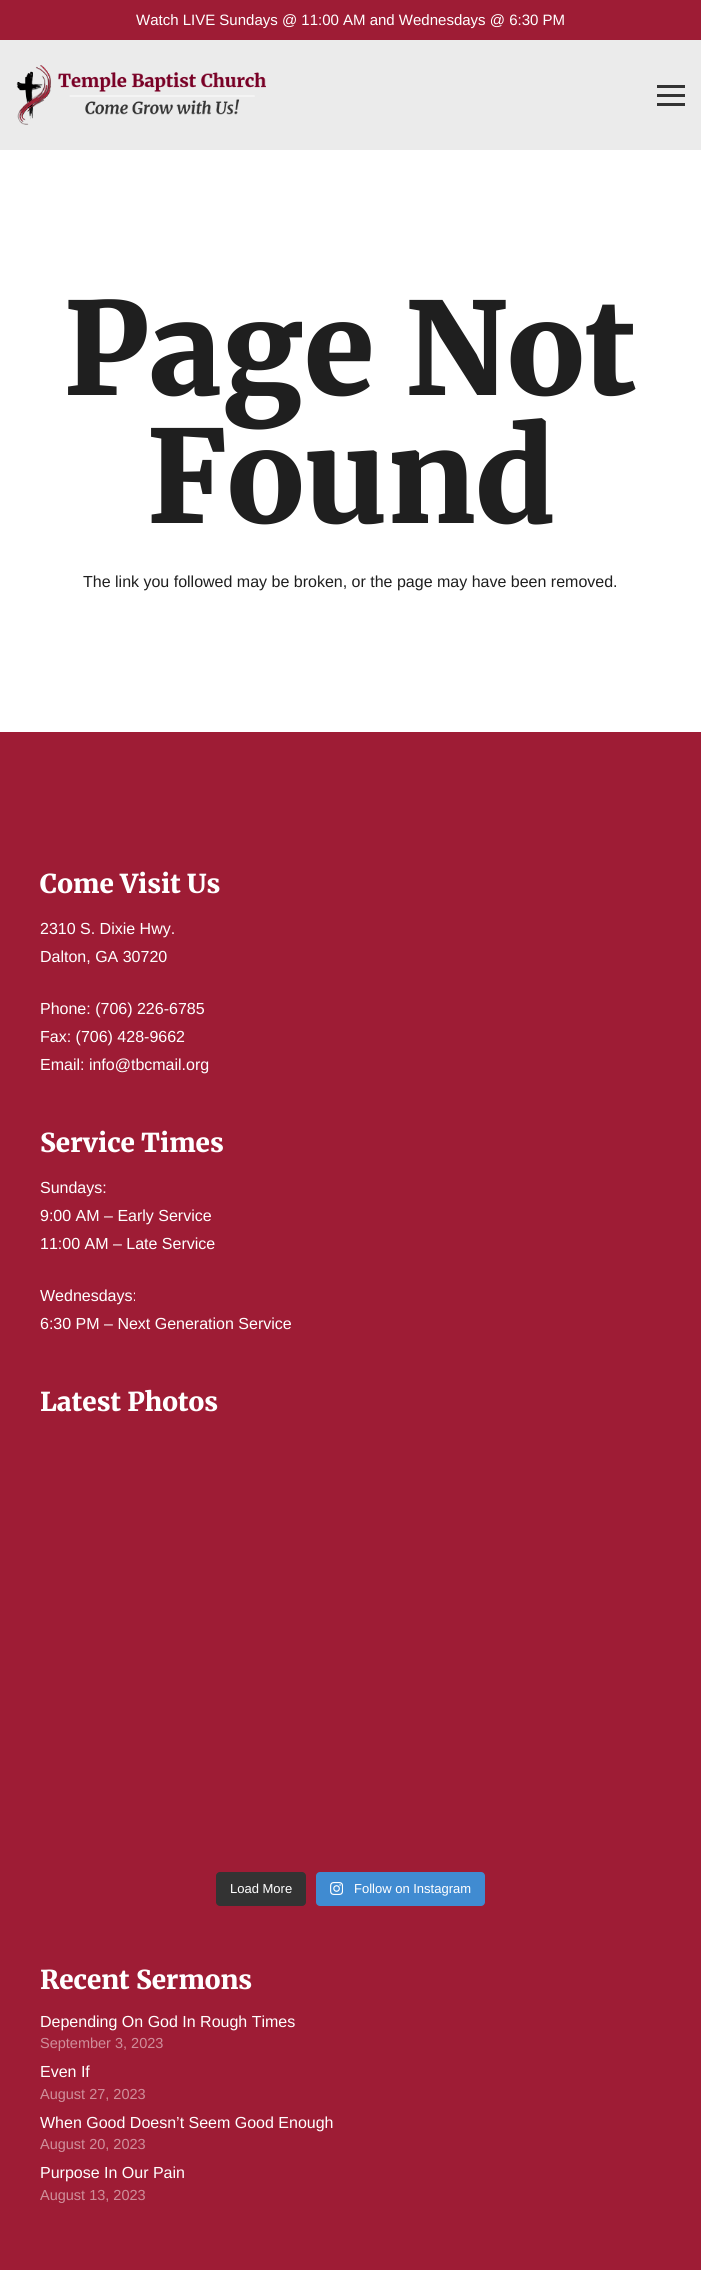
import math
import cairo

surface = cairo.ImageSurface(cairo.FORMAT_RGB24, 701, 2270)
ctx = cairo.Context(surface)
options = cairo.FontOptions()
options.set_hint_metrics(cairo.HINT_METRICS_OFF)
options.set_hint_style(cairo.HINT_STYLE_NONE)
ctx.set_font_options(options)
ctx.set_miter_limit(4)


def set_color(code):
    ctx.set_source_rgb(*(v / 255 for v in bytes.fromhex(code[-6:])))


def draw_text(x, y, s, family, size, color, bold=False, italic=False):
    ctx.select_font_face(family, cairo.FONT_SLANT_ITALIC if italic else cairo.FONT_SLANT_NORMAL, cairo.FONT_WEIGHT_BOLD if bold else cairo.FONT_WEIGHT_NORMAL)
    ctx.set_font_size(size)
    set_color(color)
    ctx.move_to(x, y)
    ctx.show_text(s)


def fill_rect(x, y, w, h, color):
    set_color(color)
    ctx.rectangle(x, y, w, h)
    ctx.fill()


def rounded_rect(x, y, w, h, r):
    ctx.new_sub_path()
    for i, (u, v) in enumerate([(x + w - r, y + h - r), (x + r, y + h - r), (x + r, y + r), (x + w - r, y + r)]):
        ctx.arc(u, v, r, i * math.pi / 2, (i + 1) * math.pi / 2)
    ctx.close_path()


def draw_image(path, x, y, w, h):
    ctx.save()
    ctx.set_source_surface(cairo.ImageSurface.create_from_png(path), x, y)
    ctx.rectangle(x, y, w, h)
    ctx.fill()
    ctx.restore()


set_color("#ffffff")
ctx.paint()
fill_rect(0, 0, 701, 40, "#9e1c35")
draw_text(136, 25, "Watch LIVE Sundays @ 11:00 AM and Wednesdays @ 6:30 PM", "Arimo", 15, "#ffffff")
fill_rect(0, 40, 701, 110, "#ebebeb")
draw_image("assets/img1.png", 16, 65, 250, 60)
fill_rect(657, 94, 28, 3, "#333333")
fill_rect(657, 85, 28, 3, "#333333")
fill_rect(657, 103, 28, 3, "#333333")
draw_text(63, 395, "Page Not", "Merriweather Black", 128, "#1f1f1f")
draw_text(146, 523, "Found", "Merriweather Black", 128, "#1f1f1f")
draw_text(83, 587, "The link you followed may be broken, or the page may have been removed.", "Arimo", 16, "#1f1f1f")
fill_rect(0, 732, 701, 1538, "#9e1c35")
draw_text(40, 893, "Come Visit Us", "Merriweather Black", 26, "#ffffff")
draw_text(40, 934, "2310 S. Dixie Hwy.", "Arimo", 16, "#ffffff")
draw_text(40, 962, "Dalton, GA 30720", "Arimo", 16, "#ffffff")
draw_text(40, 1014, "Phone: (706) 226-6785", "Arimo", 16, "#ffffff")
draw_text(40, 1042, "Fax: (706) 428-9662", "Arimo", 16, "#ffffff")
draw_text(40, 1070, "Email: info@tbcmail.org", "Arimo", 16, "#ffffff")
draw_text(40, 1152, "Service Times", "Merriweather Black", 26, "#ffffff")
draw_text(40, 1193, "Sundays:", "Arimo", 16, "#ffffff")
draw_text(40, 1221, "9:00 AM – Early Service", "Arimo", 16, "#ffffff")
draw_text(40, 1249, "11:00 AM – Late Service", "Arimo", 16, "#ffffff")
draw_text(40, 1301, "Wednesdays:", "Arimo", 16, "#ffffff")
draw_text(40, 1329, "6:30 PM – Next Generation Service", "Arimo", 16, "#ffffff")
draw_text(40, 1411, "Latest Photos", "Merriweather Black", 26, "#ffffff")
set_color("#333333")
rounded_rect(216, 1872, 90, 34, 4)
ctx.fill()
draw_text(230, 1893, "Load More", "Arimo", 13, "#ffffff")
set_color("#408bd1")
rounded_rect(316, 1872, 169, 34, 4)
ctx.fill()
draw_image("assets/img2.png", 330, 1882, 13, 13)
draw_text(354, 1893, "Follow on Instagram", "Arimo", 13, "#ffffff")
draw_text(40, 1989, "Recent Sermons", "Merriweather Black", 26, "#ffffff")
draw_text(40, 2027, "Depending On God In Rough Times", "Arimo", 16, "#ffffff")
draw_text(40, 2048, "September 3, 2023", "Arimo", 14.5, "#cf8e9a")
draw_text(40, 2077, "Even If", "Arimo", 16, "#ffffff")
draw_text(40, 2099, "August 27, 2023", "Arimo", 14.5, "#cf8e9a")
draw_text(40, 2128, "When Good Doesn’t Seem Good Enough", "Arimo", 16, "#ffffff")
draw_text(40, 2149, "August 20, 2023", "Arimo", 14.5, "#cf8e9a")
draw_text(40, 2178, "Purpose In Our Pain", "Arimo", 16, "#ffffff")
draw_text(40, 2200, "August 13, 2023", "Arimo", 14.5, "#cf8e9a")
surface.write_to_png("output.png")
